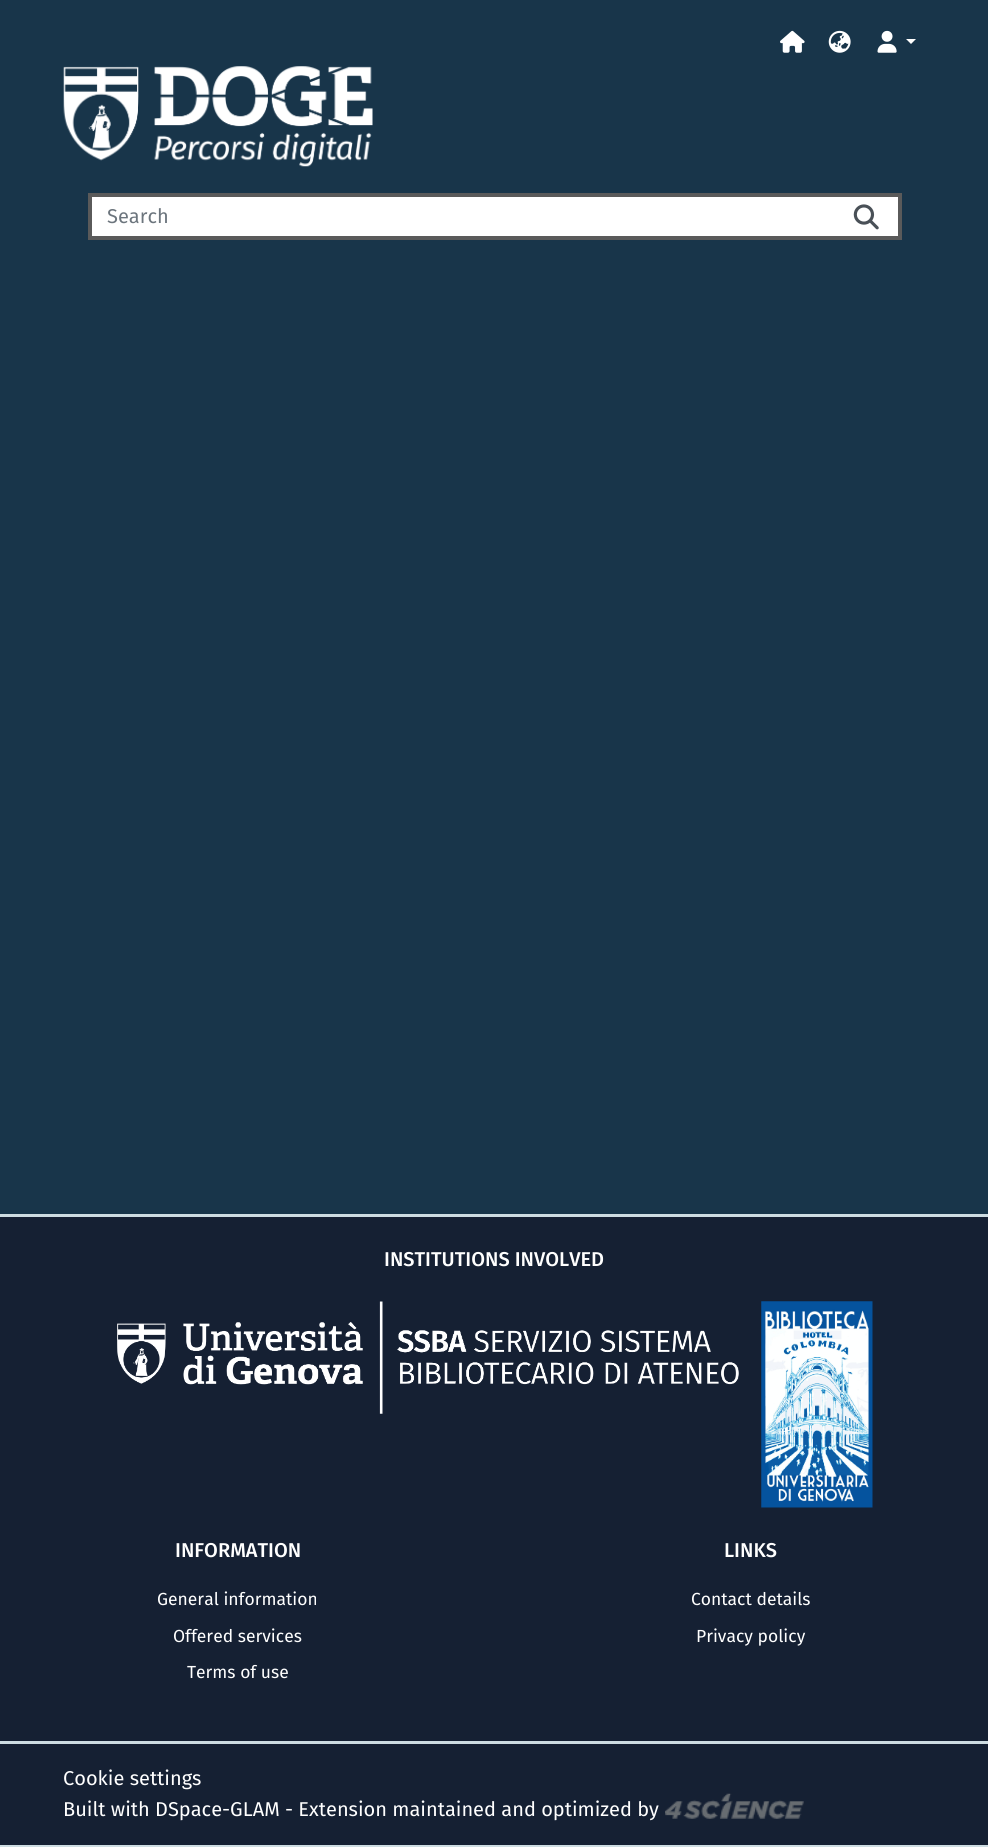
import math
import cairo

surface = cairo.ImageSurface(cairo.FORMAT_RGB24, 988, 1847)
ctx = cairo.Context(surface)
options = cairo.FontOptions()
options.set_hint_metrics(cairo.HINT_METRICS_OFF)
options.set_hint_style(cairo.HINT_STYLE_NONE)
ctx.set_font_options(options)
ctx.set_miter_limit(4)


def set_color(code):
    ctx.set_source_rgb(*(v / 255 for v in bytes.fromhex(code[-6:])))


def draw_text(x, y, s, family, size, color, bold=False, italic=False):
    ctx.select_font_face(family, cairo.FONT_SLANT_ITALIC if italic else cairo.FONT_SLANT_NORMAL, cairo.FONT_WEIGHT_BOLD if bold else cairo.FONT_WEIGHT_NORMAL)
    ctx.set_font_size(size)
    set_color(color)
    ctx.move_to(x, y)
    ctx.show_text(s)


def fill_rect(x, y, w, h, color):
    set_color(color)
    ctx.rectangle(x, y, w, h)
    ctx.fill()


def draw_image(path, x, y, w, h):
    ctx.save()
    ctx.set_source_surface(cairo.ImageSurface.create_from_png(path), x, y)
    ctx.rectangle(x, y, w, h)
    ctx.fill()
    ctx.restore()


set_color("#18354a")
ctx.paint()
draw_image("assets/img1.png", 780, 30, 25, 23)
draw_image("assets/img2.png", 828, 30, 23, 23)
draw_image("assets/img3.png", 877, 30, 20, 23)
set_color("#ffffff")
ctx.new_path()
ctx.move_to(906, 39)
ctx.line_to(916, 39)
ctx.line_to(911, 44)
ctx.close_path()
ctx.fill()
draw_image("assets/img4.png", 63, 66, 310, 101)
fill_rect(92, 197, 806, 39, "#ffffff")
fill_rect(88, 193, 813, 4, "#5a5a5a")
fill_rect(898, 193, 4, 47, "#5a5a5a")
fill_rect(88, 236, 813, 4, "#5a5a5a")
draw_image("assets/img5.png", 853, 204, 26, 26)
fill_rect(88, 193, 4, 47, "#5a5a5a")
draw_text(107, 223, "Search", "Fira Sans", 20, "#6c757d")
fill_rect(0, 1217, 988, 524, "#152033")
fill_rect(0, 1214, 988, 3, "#cddce2")
fill_rect(0, 1741, 988, 3, "#cddce2")
draw_text(384, 1266, "INSTITUTIONS INVOLVED", "Fira Sans Medium", 20, "#ffffff")
draw_image("assets/img6.png", 117, 1301, 622, 113)
draw_image("assets/img7.png", 761, 1301, 112, 207)
draw_text(175, 1557, "INFORMATION", "Fira Sans Medium", 20, "#ffffff")
draw_text(157, 1605, "General information", "Fira Sans", 17.5, "#ffffff")
draw_text(173, 1642, "Offered services", "Fira Sans", 17.5, "#ffffff")
draw_text(187, 1678, "Terms of use", "Fira Sans", 17.5, "#ffffff")
draw_text(724, 1557, "LINKS", "Fira Sans Medium", 20, "#ffffff")
draw_text(691, 1605, "Contact details", "Fira Sans", 17.5, "#ffffff")
draw_text(696, 1642, "Privacy policy", "Fira Sans", 17.5, "#ffffff")
fill_rect(0, 1744, 988, 101, "#152033")
fill_rect(0, 1845, 988, 2, "#cddce2")
draw_text(63, 1785, "Cookie settings", "Fira Sans", 20, "#ffffff")
draw_text(63, 1816, "Built with DSpace-GLAM - Extension maintained and optimized by", "Fira Sans", 20, "#ffffff")
draw_image("assets/img8.png", 665, 1793, 139, 26)
surface.write_to_png("output.png")
